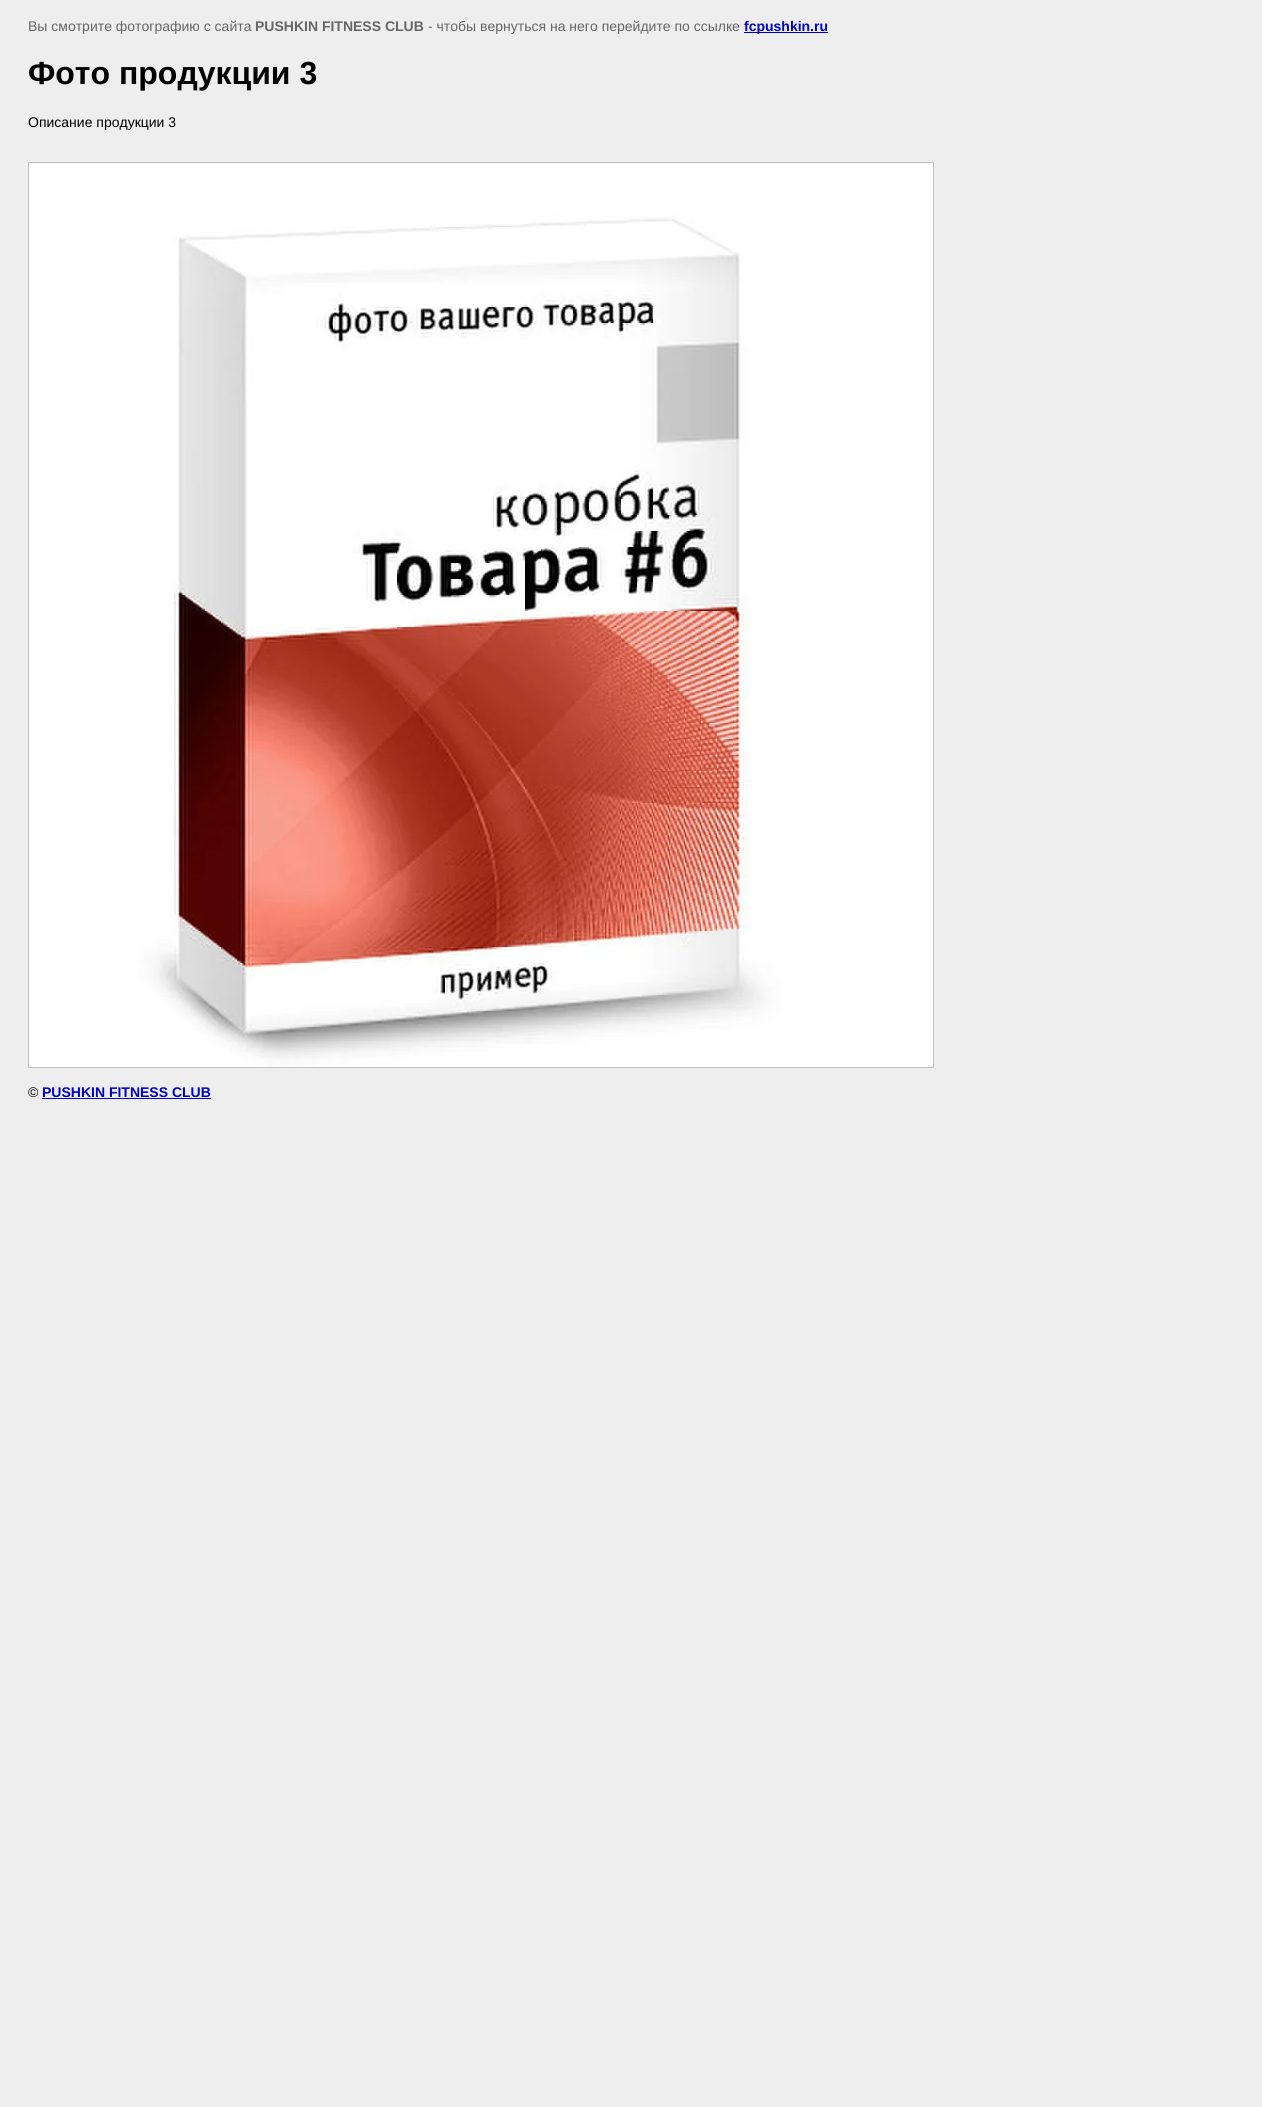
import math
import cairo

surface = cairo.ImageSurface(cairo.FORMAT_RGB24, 1262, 2107)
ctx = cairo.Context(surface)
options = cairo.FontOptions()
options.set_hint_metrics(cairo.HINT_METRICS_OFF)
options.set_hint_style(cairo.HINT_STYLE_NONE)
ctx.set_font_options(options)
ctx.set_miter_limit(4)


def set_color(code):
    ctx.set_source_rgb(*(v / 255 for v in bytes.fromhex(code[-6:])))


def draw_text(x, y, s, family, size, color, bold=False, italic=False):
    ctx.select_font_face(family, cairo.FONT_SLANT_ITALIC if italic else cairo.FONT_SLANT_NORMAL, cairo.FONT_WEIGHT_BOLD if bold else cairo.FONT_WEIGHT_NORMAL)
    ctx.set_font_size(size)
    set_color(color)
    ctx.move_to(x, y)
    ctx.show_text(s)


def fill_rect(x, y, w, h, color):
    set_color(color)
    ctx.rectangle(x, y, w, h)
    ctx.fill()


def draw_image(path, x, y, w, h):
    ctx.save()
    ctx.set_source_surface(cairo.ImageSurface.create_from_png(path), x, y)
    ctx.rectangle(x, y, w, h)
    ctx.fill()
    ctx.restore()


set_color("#eeeeee")
ctx.paint()
draw_text(28, 31, "Вы смотрите фотографию с сайта", "Liberation Sans", 14, "#666666")
draw_text(255, 31, "PUSHKIN FITNESS CLUB", "Liberation Sans", 14, "#666666", bold=True)
draw_text(428, 31, "- чтобы вернуться на него перейдите по ссылке", "Liberation Sans", 14, "#666666")
fill_rect(744, 32, 84, 1, "#0000cc")
draw_text(744, 31, "fcpushkin.ru", "Liberation Sans", 14, "#0000cc", bold=True)
draw_text(28, 84, "Фото продукции 3", "Liberation Sans", 32, "#000000", bold=True)
draw_text(28, 127, "Описание продукции 3", "Liberation Sans", 14, "#000000")
ctx.rectangle(28.5, 162.5, 905, 905)
set_color("#c0c0c0")
ctx.set_line_width(1)
ctx.stroke()
draw_image("assets/img1.png", 29, 163, 904, 904)
draw_text(28, 1097, "©", "Liberation Sans", 14, "#000000")
draw_text(42, 1097, "PUSHKIN FITNESS CLUB", "Liberation Sans", 14, "#0000cc", bold=True)
fill_rect(42, 1098, 169, 1, "#0000cc")
surface.write_to_png("output.png")
